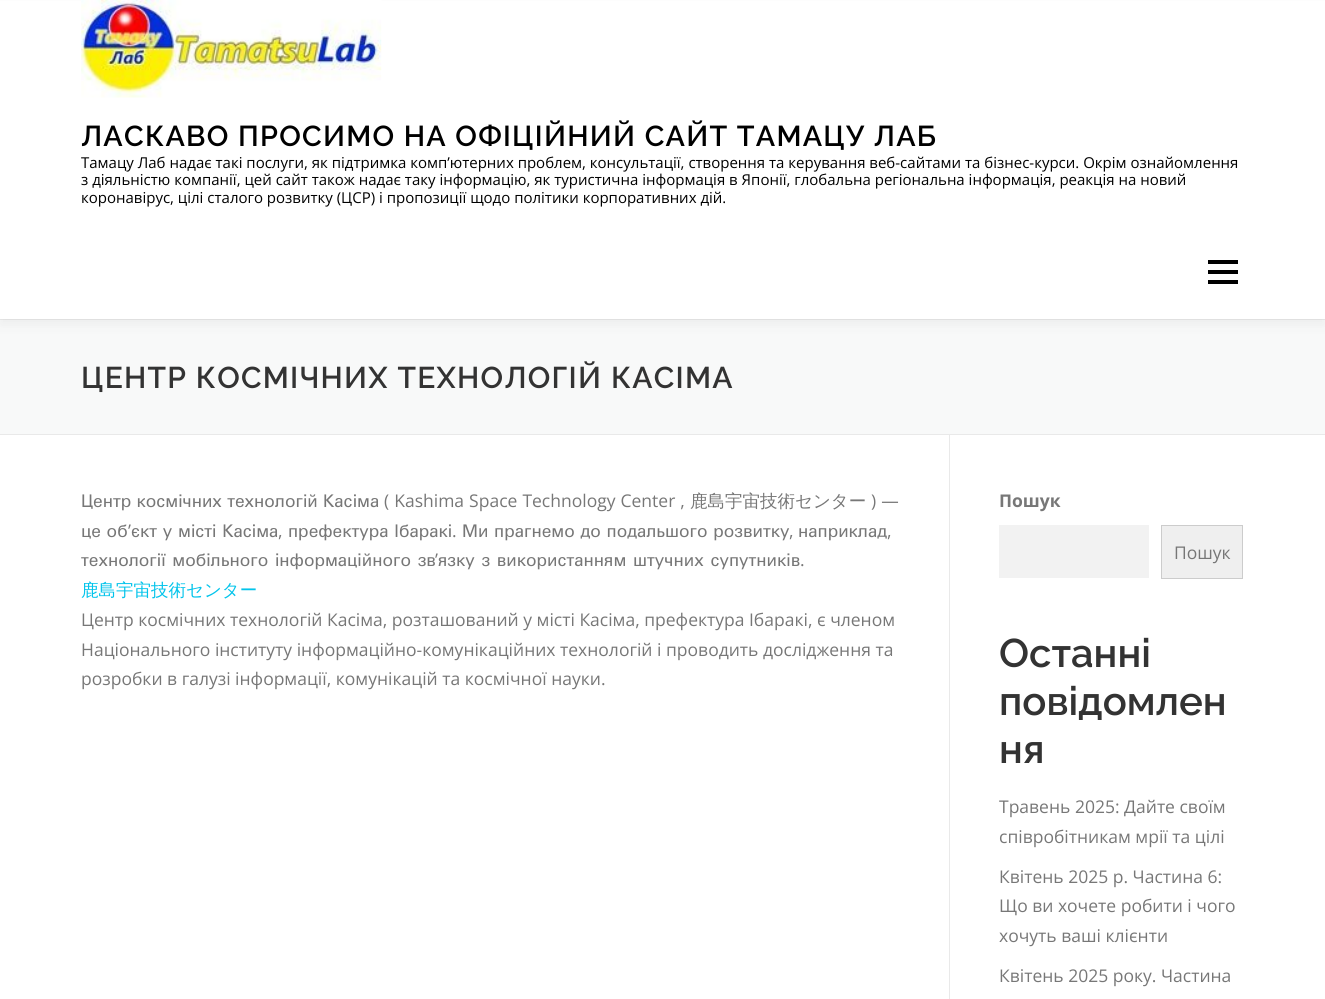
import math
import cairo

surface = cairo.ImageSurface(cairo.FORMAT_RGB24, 1325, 999)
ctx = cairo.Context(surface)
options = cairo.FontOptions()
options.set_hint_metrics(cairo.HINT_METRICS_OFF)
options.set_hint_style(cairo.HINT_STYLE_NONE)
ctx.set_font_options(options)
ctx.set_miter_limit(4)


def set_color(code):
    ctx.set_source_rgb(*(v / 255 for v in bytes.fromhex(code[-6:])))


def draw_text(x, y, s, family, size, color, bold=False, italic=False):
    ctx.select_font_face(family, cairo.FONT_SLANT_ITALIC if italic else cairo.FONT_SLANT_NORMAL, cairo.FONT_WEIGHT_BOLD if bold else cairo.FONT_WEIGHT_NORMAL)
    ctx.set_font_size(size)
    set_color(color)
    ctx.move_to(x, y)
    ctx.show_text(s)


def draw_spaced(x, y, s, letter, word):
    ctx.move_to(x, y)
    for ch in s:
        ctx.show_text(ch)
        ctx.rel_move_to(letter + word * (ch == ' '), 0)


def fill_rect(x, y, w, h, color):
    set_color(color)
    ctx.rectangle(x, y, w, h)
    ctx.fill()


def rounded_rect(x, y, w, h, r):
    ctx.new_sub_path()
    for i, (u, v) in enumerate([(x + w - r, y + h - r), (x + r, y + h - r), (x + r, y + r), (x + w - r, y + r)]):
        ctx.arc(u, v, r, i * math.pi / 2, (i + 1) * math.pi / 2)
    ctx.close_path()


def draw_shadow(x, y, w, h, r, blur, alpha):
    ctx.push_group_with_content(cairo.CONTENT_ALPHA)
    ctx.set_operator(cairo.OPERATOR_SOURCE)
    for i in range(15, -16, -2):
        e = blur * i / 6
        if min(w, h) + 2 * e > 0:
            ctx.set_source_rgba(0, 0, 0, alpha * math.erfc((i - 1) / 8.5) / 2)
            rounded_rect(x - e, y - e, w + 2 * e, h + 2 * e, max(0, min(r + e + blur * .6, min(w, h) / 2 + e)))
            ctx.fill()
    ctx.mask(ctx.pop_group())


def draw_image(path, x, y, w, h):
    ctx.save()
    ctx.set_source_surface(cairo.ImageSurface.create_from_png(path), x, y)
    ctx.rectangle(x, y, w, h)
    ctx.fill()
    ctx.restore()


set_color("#ffffff")
ctx.paint()
fill_rect(0, 320, 1325, 114, "#f8f9f9")
fill_rect(0, 319, 1325, 1, "#e9e9e9")
set_color("#323232")
draw_shadow(0, 6, 1325, 319, 0, 6, 0.06)
fill_rect(0, 1, 1325, 318, "#ffffff")
draw_image("assets/img1.png", 81, 0, 301, 98)
ctx.select_font_face("Raleway SemiBold")
ctx.set_font_size(28.75)
set_color("#000000")
draw_spaced(81, 146, "ЛАСКАВО ПРОСИМО НА ОФІЦІЙНИЙ САЙТ ТАМАЦУ ЛАБ", 1.25, 0)
draw_text(81, 168, "Тамацу Лаб надає такі послуги, як підтримка комп’ютерних проблем, консультації, створення та керування веб-сайтами та бізнес-курси. Окрім ознайомлення", "Open Sans", 15, "#000000")
draw_text(81, 185, "з діяльністю компанії, цей сайт також надає таку інформацію, як туристична інформація в Японії, глобальна регіональна інформація, реакція на новий", "Open Sans", 15, "#000000")
draw_text(81, 203, "коронавірус, цілі сталого розвитку (ЦСР) і пропозиції щодо політики корпоративних дій.", "Open Sans", 15, "#000000")
fill_rect(1208, 270, 30, 4, "#000000")
fill_rect(1208, 260, 30, 4, "#000000")
fill_rect(1208, 280, 30, 4, "#000000")
fill_rect(0, 434, 1325, 1, "#e9e9e9")
ctx.select_font_face("Raleway SemiBold")
ctx.set_font_size(30)
set_color("#333333")
draw_spaced(81, 388, "ЦЕНТР КОСМІЧНИХ ТЕХНОЛОГІЙ КАСІМА", 1.25, 0)
fill_rect(949, 435, 1, 564, "#e9e9e9")
draw_text(81, 507, "Центр космічних технологій Касіма", "WenQuanYi Zen Hei Medium", 17.5, "#777777")
ctx.select_font_face("Open Sans")
draw_spaced(384, 507, "( Kashima Space Technology Center ,", 0, 0.5)
draw_text(690, 507, "鹿島宇宙技術センター", "WenQuanYi Zen Hei Medium", 17.5, "#777777")
ctx.select_font_face("Open Sans")
draw_spaced(871, 507, ") —", 0, 0.5)
ctx.select_font_face("WenQuanYi Zen Hei Medium")
draw_spaced(81, 537, "це об", 0, 0.5)
draw_text(128, 537, "’", "Open Sans", 17.5, "#777777")
ctx.select_font_face("WenQuanYi Zen Hei Medium")
draw_spaced(131, 537, "єкт у місті Касіма", 0, 0.5)
draw_text(278, 537, ",", "Open Sans", 17.5, "#777777")
ctx.select_font_face("WenQuanYi Zen Hei Medium")
draw_spaced(288, 537, "префектура Ібаракі", 0, 0.5)
draw_text(452, 537, ".", "Open Sans", 17.5, "#777777")
ctx.select_font_face("WenQuanYi Zen Hei Medium")
draw_spaced(462, 537, "Ми прагнемо до подальшого розвитку", 0, 0.5)
draw_text(789, 537, ",", "Open Sans", 17.5, "#777777")
draw_text(798, 537, "наприклад", "WenQuanYi Zen Hei Medium", 17.5, "#777777")
draw_text(887, 537, ",", "Open Sans", 17.5, "#777777")
ctx.select_font_face("WenQuanYi Zen Hei Medium")
draw_spaced(81, 566, "технології мобільного інформаційного зв", 0, 1.5)
draw_text(435, 566, "’", "Open Sans", 17.5, "#777777")
ctx.select_font_face("WenQuanYi Zen Hei Medium")
draw_spaced(438, 566, "язку з використанням штучних супутників", 0, 1.5)
draw_text(800, 566, ".", "Open Sans", 17.5, "#777777")
draw_text(81, 596, "鹿島宇宙技術センター", "WenQuanYi Zen Hei Medium", 17.5, "#03c4eb")
draw_text(81, 626, "Центр космічних технологій Касіма, розташований у місті Касіма, префектура Ібаракі, є членом", "Open Sans", 17.5, "#777777")
draw_text(81, 656, "Національного інституту інформаційно-комунікаційних технологій і проводить дослідження та", "Open Sans", 17.5, "#777777")
draw_text(81, 685, "розробки в галузі інформації, комунікацій та космічної науки.", "Open Sans", 17.5, "#777777")
draw_text(999, 507, "Пошук", "Open Sans", 17.5, "#777777", bold=True)
fill_rect(999, 525, 150, 53, "#f2f2f2")
set_color("#efefef")
ctx.rectangle(1161.5, 525.5, 81, 53)
ctx.fill_preserve()
set_color("#cccccc")
ctx.set_line_width(1)
ctx.stroke()
draw_text(1174, 559, "Пошук", "Open Sans", 17.5, "#777777")
draw_text(999, 667, "Останні", "Raleway SemiBold", 40, "#333333")
draw_text(999, 715, "повідомлен", "Raleway SemiBold", 40, "#333333")
draw_text(999, 763, "ня", "Raleway SemiBold", 40, "#333333")
draw_text(999, 813, "Травень 2025: Дайте своїм", "Open Sans", 17.5, "#777777")
draw_text(999, 843, "співробітникам мрії та цілі", "Open Sans", 17.5, "#777777")
draw_text(999, 883, "Квітень 2025 р. Частина 6:", "Open Sans", 17.5, "#777777")
draw_text(999, 912, "Що ви хочете робити і чого", "Open Sans", 17.5, "#777777")
draw_text(999, 942, "хочуть ваші клієнти", "Open Sans", 17.5, "#777777")
draw_text(999, 982, "Квітень 2025 року. Частина", "Open Sans", 17.5, "#777777")
surface.write_to_png("output.png")
